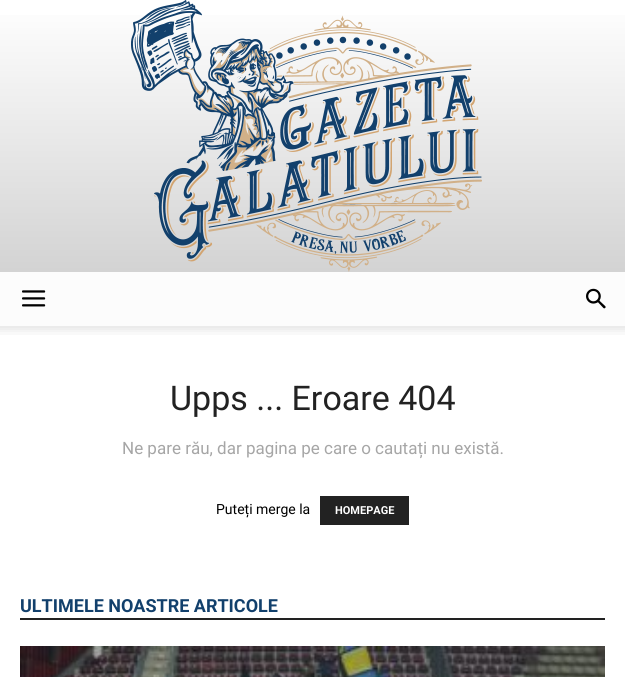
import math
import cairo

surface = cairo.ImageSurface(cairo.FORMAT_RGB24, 625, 677)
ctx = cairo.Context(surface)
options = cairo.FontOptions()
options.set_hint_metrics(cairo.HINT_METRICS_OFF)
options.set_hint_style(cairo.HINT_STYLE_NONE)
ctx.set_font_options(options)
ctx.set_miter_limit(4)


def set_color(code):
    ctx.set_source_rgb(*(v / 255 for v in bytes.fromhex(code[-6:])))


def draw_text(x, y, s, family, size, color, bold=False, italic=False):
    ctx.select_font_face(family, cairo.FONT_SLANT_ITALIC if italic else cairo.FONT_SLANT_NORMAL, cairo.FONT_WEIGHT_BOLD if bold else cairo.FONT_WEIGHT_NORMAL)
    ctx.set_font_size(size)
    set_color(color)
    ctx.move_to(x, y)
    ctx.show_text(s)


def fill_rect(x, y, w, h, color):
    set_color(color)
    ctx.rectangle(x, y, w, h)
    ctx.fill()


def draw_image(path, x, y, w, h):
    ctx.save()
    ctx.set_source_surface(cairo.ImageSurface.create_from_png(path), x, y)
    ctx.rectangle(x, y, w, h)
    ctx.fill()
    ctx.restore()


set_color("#ffffff")
ctx.paint()
gradient = cairo.LinearGradient(313, 0, 313, 272)
gradient.add_color_stop_rgba(0, 1, 1, 1, 1)
gradient.add_color_stop_rgba(1, 0.827, 0.827, 0.827, 1)
ctx.set_source(gradient)
ctx.rectangle(0, 15, 625, 257)
ctx.fill()
draw_image("assets/img1.png", 131, 0, 351, 272)
fill_rect(0, 272, 625, 54, "#fcfcfc")
draw_image("assets/img2.png", 22, 290, 24, 17)
draw_image("assets/img3.png", 586, 288, 20, 21)
draw_image("assets/img4.png", 0, 326, 625, 9)
draw_text(170, 410, "Upps ... Eroare 404", "Roboto", 34, "#222222")
draw_text(122, 454, "Ne pare rău, dar pagina pe care o cautați nu există.", "Roboto", 17, "#a6a6a6")
draw_text(216, 514, "Puteți merge la", "Roboto", 14, "#000000")
fill_rect(320, 496, 89, 29, "#222222")
draw_text(335, 514, "HOMEPAGE", "Roboto", 11, "#ffffff", bold=True)
fill_rect(20, 618, 585, 2, "#222222")
draw_text(20, 612, "ULTIMELE NOASTRE ARTICOLE", "Roboto", 18, "#12406c", bold=True)
draw_image("assets/img5.png", 20, 646, 585, 31)
surface.write_to_png("output.png")
